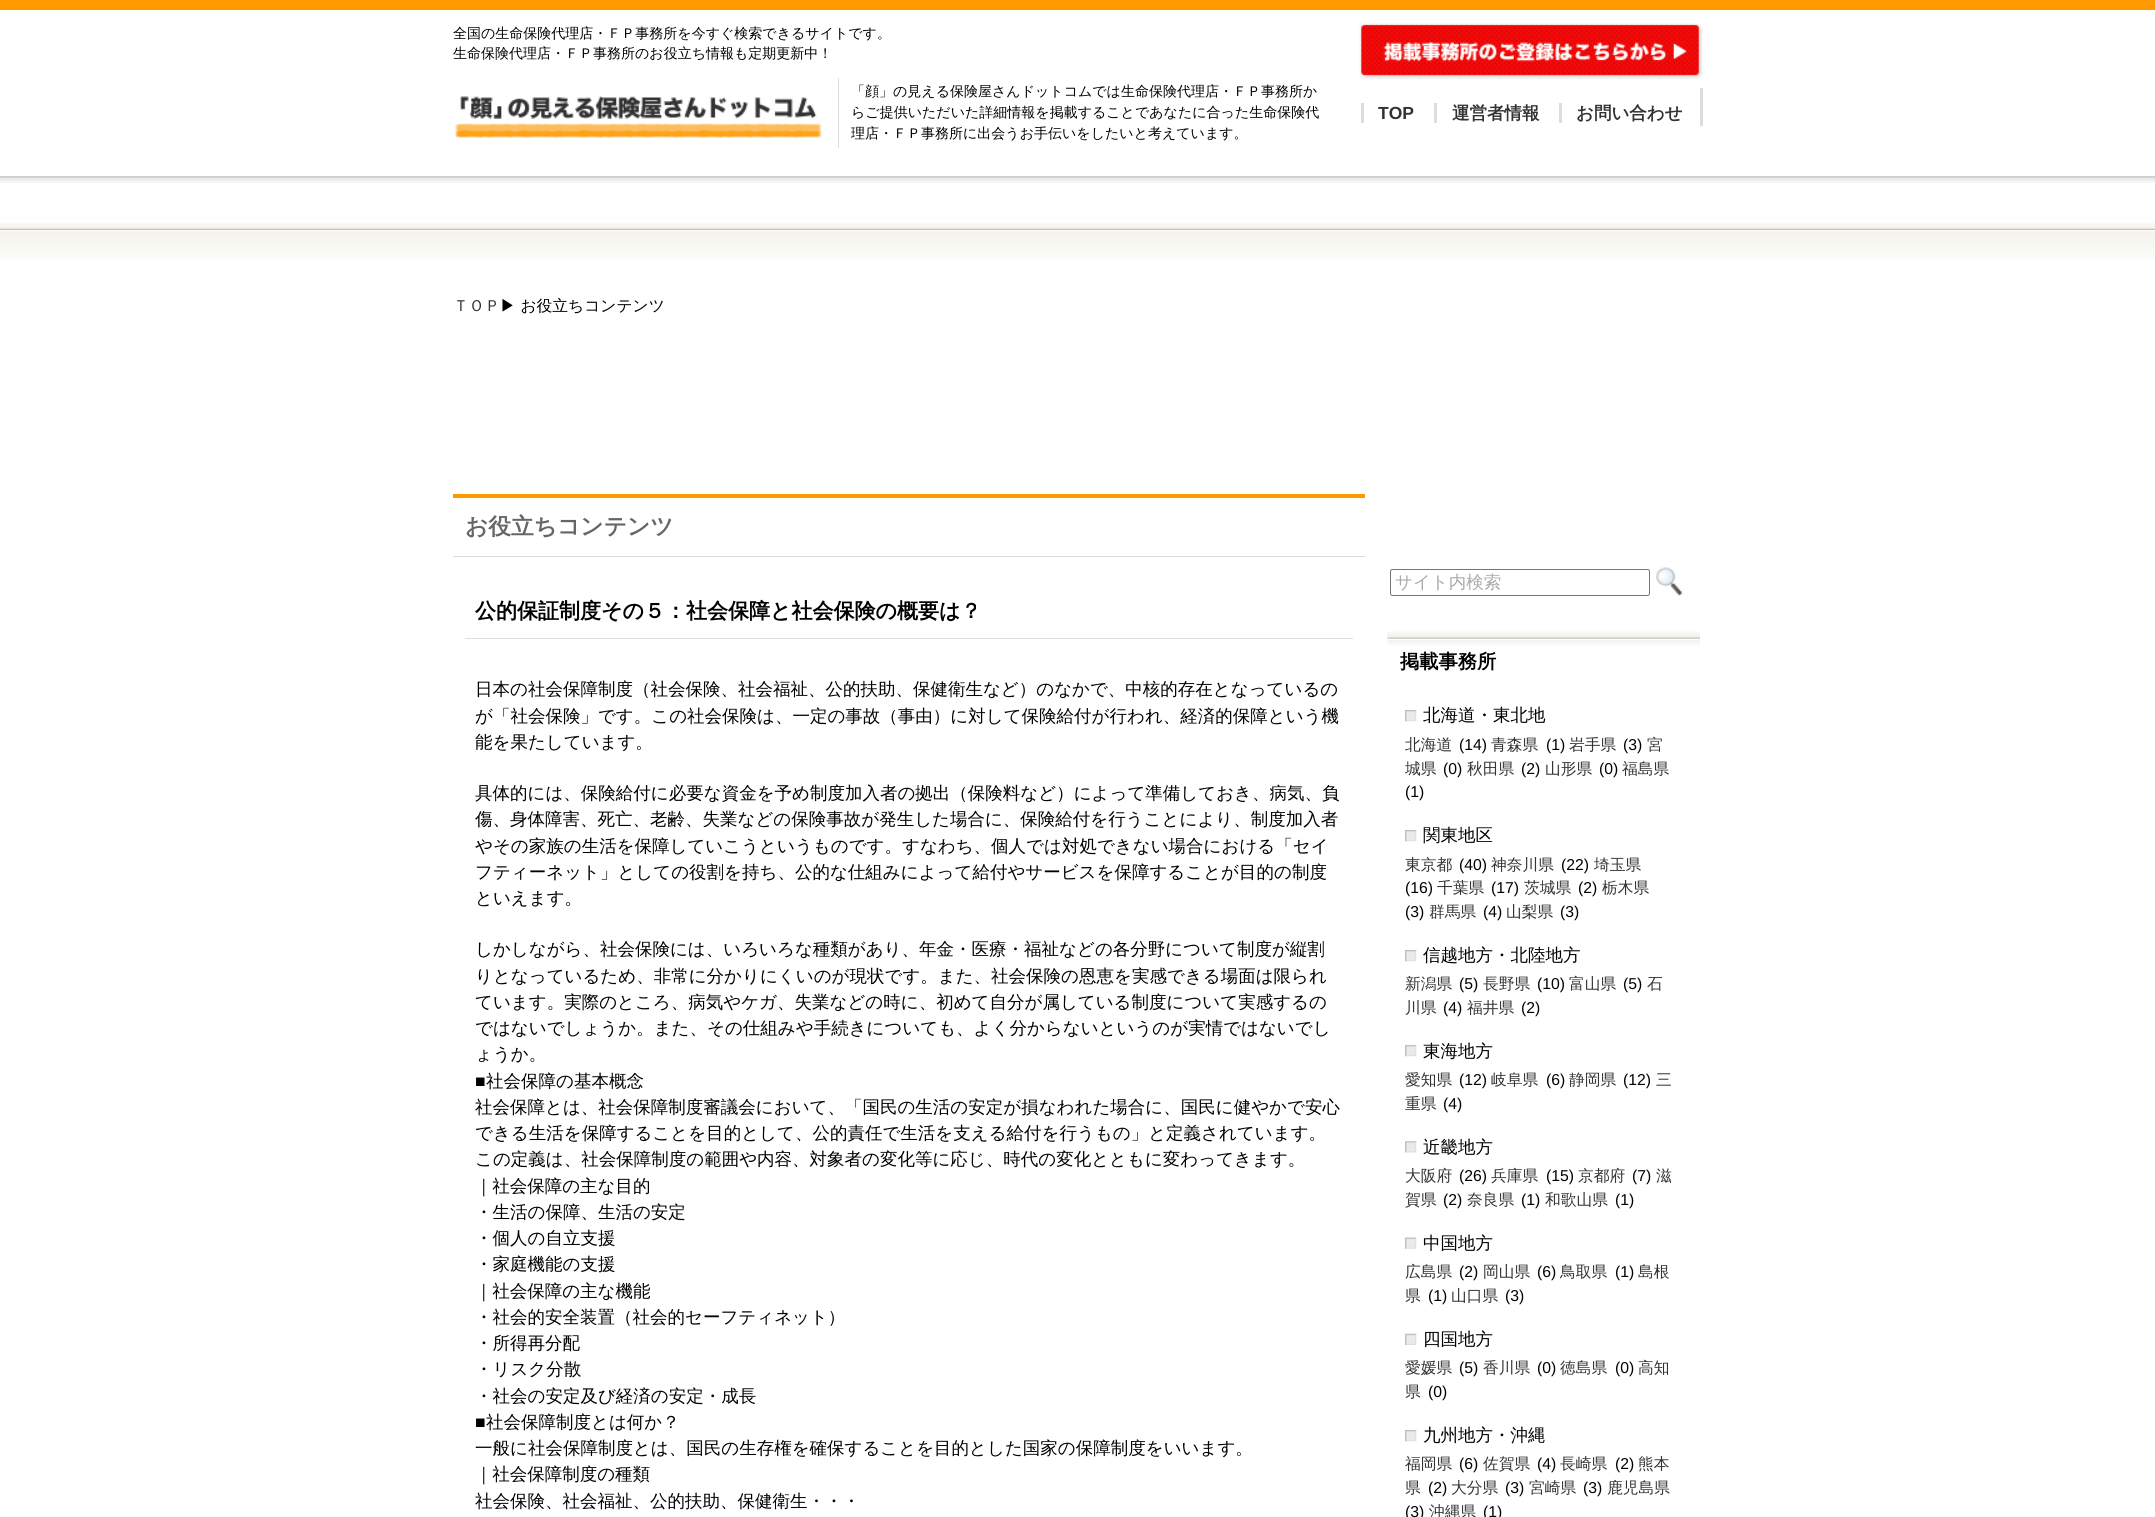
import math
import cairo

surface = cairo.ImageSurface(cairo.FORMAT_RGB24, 2155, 1517)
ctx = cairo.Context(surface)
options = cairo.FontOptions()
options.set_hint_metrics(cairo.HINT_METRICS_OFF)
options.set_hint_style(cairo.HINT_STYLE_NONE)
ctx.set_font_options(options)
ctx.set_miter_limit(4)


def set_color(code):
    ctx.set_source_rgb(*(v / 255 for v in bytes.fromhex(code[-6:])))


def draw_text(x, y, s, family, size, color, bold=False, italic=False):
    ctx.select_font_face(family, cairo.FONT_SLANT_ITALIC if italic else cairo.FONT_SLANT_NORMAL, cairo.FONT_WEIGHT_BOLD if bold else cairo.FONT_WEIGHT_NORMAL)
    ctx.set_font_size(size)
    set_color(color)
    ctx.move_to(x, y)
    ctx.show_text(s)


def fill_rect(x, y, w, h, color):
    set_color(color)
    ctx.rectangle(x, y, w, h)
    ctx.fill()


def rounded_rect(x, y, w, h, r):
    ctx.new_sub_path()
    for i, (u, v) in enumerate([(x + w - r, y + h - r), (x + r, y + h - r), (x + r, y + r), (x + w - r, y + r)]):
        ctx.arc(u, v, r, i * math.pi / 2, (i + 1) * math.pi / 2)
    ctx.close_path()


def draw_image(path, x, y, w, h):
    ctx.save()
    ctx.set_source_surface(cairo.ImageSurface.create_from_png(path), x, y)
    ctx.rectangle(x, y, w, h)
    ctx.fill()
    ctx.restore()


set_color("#ffffff")
ctx.paint()
draw_image("assets/img1.png", 0, 176, 2155, 7)
fill_rect(0, 0, 2155, 10, "#fe9900")
draw_text(453, 38, "全国の生命保険代理店・ＦＰ事務所を今すぐ検索できるサイトです。", "WenQuanYi Zen Hei Medium", 14, "#000000")
draw_text(453, 58, "生命保険代理店・ＦＰ事務所のお役立ち情報も定期更新中！", "WenQuanYi Zen Hei Medium", 14, "#000000")
draw_image("assets/img2.png", 455, 96, 367, 42)
fill_rect(838, 78, 1, 70, "#dddddd")
draw_text(851, 96, "「顔」の見える保険屋さんドットコムでは生命保険代理店・ＦＰ事務所か", "WenQuanYi Zen Hei Medium", 14, "#000000")
draw_text(851, 117, "らご提供いただいた詳細情報を掲載することであなたに合った生命保険代", "WenQuanYi Zen Hei Medium", 14, "#000000")
draw_text(851, 138, "理店・ＦＰ事務所に出会うお手伝いをしたいと考えています。", "WenQuanYi Zen Hei Medium", 14, "#000000")
draw_image("assets/img3.png", 1359, 23, 344, 57)
fill_rect(1700, 88, 3, 38, "#dddddd")
draw_text(1378, 119, "TOP", "Liberation Sans", 17.5, "#333333", bold=True)
fill_rect(1361, 103, 3, 20, "#dddddd")
draw_text(1452, 119, "運営者情報", "WenQuanYi Zen Hei", 17.5, "#333333", bold=True)
fill_rect(1434, 103, 3, 20, "#dddddd")
draw_text(1576, 119, "お問い合わせ", "WenQuanYi Zen Hei", 17.5, "#333333", bold=True)
fill_rect(1559, 103, 3, 20, "#dddddd")
draw_image("assets/img4.png", 0, 222, 2155, 38)
draw_text(453, 311, "ＴＯＰ", "WenQuanYi Zen Hei Medium", 15.75, "#333333")
draw_text(500, 311, "▶ お役立ちコンテンツ", "WenQuanYi Zen Hei Medium", 15.75, "#000000")
fill_rect(453, 494, 912, 4, "#fe9900")
fill_rect(453, 556, 912, 1, "#dddddd")
draw_text(465, 534, "お役立ちコンテンツ", "WenQuanYi Zen Hei", 22.75, "#666666", bold=True)
fill_rect(465, 638, 888, 1, "#dddddd")
draw_text(475, 618, "公的保証制度その５：社会保障と社会保険の概要は？", "WenQuanYi Zen Hei", 21, "#000000", bold=True)
draw_text(475, 695, "日本の社会保障制度（社会保険、社会福祉、公的扶助、保健衛生など）のなかで、中核的存在となっているの", "WenQuanYi Zen Hei Medium", 17.5, "#000000")
draw_text(475, 722, "が「社会保険」です。この社会保険は、一定の事故（事由）に対して保険給付が行われ、経済的保障という機", "WenQuanYi Zen Hei Medium", 17.5, "#000000")
draw_text(475, 748, "能を果たしています。", "WenQuanYi Zen Hei Medium", 17.5, "#000000")
draw_text(475, 799, "具体的には、保険給付に必要な資金を予め制度加入者の拠出（保険料など）によって準備しておき、病気、負", "WenQuanYi Zen Hei Medium", 17.5, "#000000")
draw_text(475, 825, "傷、身体障害、死亡、老齢、失業などの保険事故が発生した場合に、保険給付を行うことにより、制度加入者", "WenQuanYi Zen Hei Medium", 17.5, "#000000")
draw_text(475, 852, "やその家族の生活を保障していこうというものです。すなわち、個人では対処できない場合における「セイ", "WenQuanYi Zen Hei Medium", 17.5, "#000000")
draw_text(475, 878, "フティーネット」としての役割を持ち、公的な仕組みによって給付やサービスを保障することが目的の制度", "WenQuanYi Zen Hei Medium", 17.5, "#000000")
draw_text(475, 904, "といえます。", "WenQuanYi Zen Hei Medium", 17.5, "#000000")
draw_text(475, 955, "しかしながら、社会保険には、いろいろな種類があり、年金・医療・福祉などの各分野について制度が縦割", "WenQuanYi Zen Hei Medium", 17.5, "#000000")
draw_text(475, 982, "りとなっているため、非常に分かりにくいのが現状です。また、社会保険の恩恵を実感できる場面は限られ", "WenQuanYi Zen Hei Medium", 17.5, "#000000")
draw_text(475, 1008, "ています。実際のところ、病気やケガ、失業などの時に、初めて自分が属している制度について実感するの", "WenQuanYi Zen Hei Medium", 17.5, "#000000")
draw_text(475, 1034, "ではないでしょうか。また、その仕組みや手続きについても、よく分からないというのが実情ではないでし", "WenQuanYi Zen Hei Medium", 17.5, "#000000")
draw_text(475, 1060, "ょうか。", "WenQuanYi Zen Hei Medium", 17.5, "#000000")
draw_text(475, 1087, "■", "Liberation Sans", 17.5, "#000000")
draw_text(486, 1087, "社会保障の基本概念", "WenQuanYi Zen Hei Medium", 17.5, "#000000")
draw_text(475, 1113, "社会保障とは、社会保障制度審議会において、「国民の生活の安定が損なわれた場合に、国民に健やかで安心", "WenQuanYi Zen Hei Medium", 17.5, "#000000")
draw_text(475, 1139, "できる生活を保障することを目的として、公的責任で生活を支える給付を行うもの」と定義されています。", "WenQuanYi Zen Hei Medium", 17.5, "#000000")
draw_text(475, 1165, "この定義は、社会保障制度の範囲や内容、対象者の変化等に応じ、時代の変化とともに変わってきます。", "WenQuanYi Zen Hei Medium", 17.5, "#000000")
draw_text(475, 1192, "｜社会保障の主な目的", "WenQuanYi Zen Hei Medium", 17.5, "#000000")
draw_text(475, 1218, "・生活の保障、生活の安定", "WenQuanYi Zen Hei Medium", 17.5, "#000000")
draw_text(475, 1244, "・個人の自立支援", "WenQuanYi Zen Hei Medium", 17.5, "#000000")
draw_text(475, 1270, "・家庭機能の支援", "WenQuanYi Zen Hei Medium", 17.5, "#000000")
draw_text(475, 1297, "｜社会保障の主な機能", "WenQuanYi Zen Hei Medium", 17.5, "#000000")
draw_text(475, 1323, "・社会的安全装置（社会的セーフティネット）", "WenQuanYi Zen Hei Medium", 17.5, "#000000")
draw_text(475, 1349, "・所得再分配", "WenQuanYi Zen Hei Medium", 17.5, "#000000")
draw_text(475, 1375, "・リスク分散", "WenQuanYi Zen Hei Medium", 17.5, "#000000")
draw_text(475, 1402, "・社会の安定及び経済の安定・成長", "WenQuanYi Zen Hei Medium", 17.5, "#000000")
draw_text(475, 1428, "■", "Liberation Sans", 17.5, "#000000")
draw_text(486, 1428, "社会保障制度とは何か？", "WenQuanYi Zen Hei Medium", 17.5, "#000000")
draw_text(475, 1454, "一般に社会保障制度とは、国民の生存権を確保することを目的とした国家の保障制度をいいます。", "WenQuanYi Zen Hei Medium", 17.5, "#000000")
draw_text(475, 1480, "｜社会保障制度の種類", "WenQuanYi Zen Hei Medium", 17.5, "#000000")
draw_text(475, 1507, "社会保険、社会福祉、公的扶助、保健衛生・・・", "WenQuanYi Zen Hei Medium", 17.5, "#000000")
rounded_rect(1390.5, 569.5, 259, 26, 2)
set_color("#767676")
ctx.set_line_width(1)
ctx.stroke()
draw_text(1395, 588, "サイト内検索", "WenQuanYi Zen Hei Medium", 17.5, "#aaaaaa")
draw_image("assets/img5.png", 1656, 567, 27, 29)
draw_image("assets/img6.png", 1387, 631, 313, 14)
draw_text(1400, 668, "掲載事務所", "WenQuanYi Zen Hei", 19.25, "#000000", bold=True)
draw_image("assets/img7.png", 1405, 710, 12, 12)
draw_text(1423, 721, "北海道・東北地", "WenQuanYi Zen Hei Medium", 17.5, "#000000")
draw_text(1405, 750, "北海道", "WenQuanYi Zen Hei Medium", 15.75, "#333333")
draw_text(1459, 750, "(14)", "Liberation Sans", 15.75, "#000000")
draw_text(1491, 750, "青森県", "WenQuanYi Zen Hei Medium", 15.75, "#333333")
draw_text(1546, 750, "(1)", "Liberation Sans", 15.75, "#000000")
draw_text(1569, 750, "岩手県", "WenQuanYi Zen Hei Medium", 15.75, "#333333")
draw_text(1623, 750, "(3)", "Liberation Sans", 15.75, "#000000")
draw_text(1647, 750, "宮", "WenQuanYi Zen Hei Medium", 15.75, "#333333")
draw_text(1405, 774, "城県", "WenQuanYi Zen Hei Medium", 15.75, "#333333")
draw_text(1443, 774, "(0)", "Liberation Sans", 15.75, "#000000")
draw_text(1467, 774, "秋田県", "WenQuanYi Zen Hei Medium", 15.75, "#333333")
draw_text(1521, 774, "(2)", "Liberation Sans", 15.75, "#000000")
draw_text(1545, 774, "山形県", "WenQuanYi Zen Hei Medium", 15.75, "#333333")
draw_text(1599, 774, "(0)", "Liberation Sans", 15.75, "#000000")
draw_text(1622, 774, "福島県", "WenQuanYi Zen Hei Medium", 15.75, "#333333")
draw_text(1405, 797, "(1)", "Liberation Sans", 15.75, "#000000")
draw_image("assets/img7.png", 1405, 830, 12, 12)
draw_text(1423, 841, "関東地区", "WenQuanYi Zen Hei Medium", 17.5, "#000000")
draw_text(1405, 870, "東京都", "WenQuanYi Zen Hei Medium", 15.75, "#333333")
draw_text(1459, 870, "(40)", "Liberation Sans", 15.75, "#000000")
draw_text(1491, 870, "神奈川県", "WenQuanYi Zen Hei Medium", 15.75, "#333333")
draw_text(1561, 870, "(22)", "Liberation Sans", 15.75, "#000000")
draw_text(1594, 870, "埼玉県", "WenQuanYi Zen Hei Medium", 15.75, "#333333")
draw_text(1405, 893, "(16)", "Liberation Sans", 15.75, "#000000")
draw_text(1437, 893, "千葉県", "WenQuanYi Zen Hei Medium", 15.75, "#333333")
draw_text(1491, 893, "(17)", "Liberation Sans", 15.75, "#000000")
draw_text(1524, 893, "茨城県", "WenQuanYi Zen Hei Medium", 15.75, "#333333")
draw_text(1578, 893, "(2)", "Liberation Sans", 15.75, "#000000")
draw_text(1602, 893, "栃木県", "WenQuanYi Zen Hei Medium", 15.75, "#333333")
draw_text(1405, 917, "(3)", "Liberation Sans", 15.75, "#000000")
draw_text(1429, 917, "群馬県", "WenQuanYi Zen Hei Medium", 15.75, "#333333")
draw_text(1483, 917, "(4)", "Liberation Sans", 15.75, "#000000")
draw_text(1506, 917, "山梨県", "WenQuanYi Zen Hei Medium", 15.75, "#333333")
draw_text(1560, 917, "(3)", "Liberation Sans", 15.75, "#000000")
draw_image("assets/img7.png", 1405, 950, 12, 12)
draw_text(1423, 961, "信越地方・北陸地方", "WenQuanYi Zen Hei Medium", 17.5, "#000000")
draw_text(1405, 989, "新潟県", "WenQuanYi Zen Hei Medium", 15.75, "#333333")
draw_text(1459, 989, "(5)", "Liberation Sans", 15.75, "#000000")
draw_text(1483, 989, "長野県", "WenQuanYi Zen Hei Medium", 15.75, "#333333")
draw_text(1537, 989, "(10)", "Liberation Sans", 15.75, "#000000")
draw_text(1569, 989, "富山県", "WenQuanYi Zen Hei Medium", 15.75, "#333333")
draw_text(1623, 989, "(5)", "Liberation Sans", 15.75, "#000000")
draw_text(1647, 989, "石", "WenQuanYi Zen Hei Medium", 15.75, "#333333")
draw_text(1405, 1013, "川県", "WenQuanYi Zen Hei Medium", 15.75, "#333333")
draw_text(1443, 1013, "(4)", "Liberation Sans", 15.75, "#000000")
draw_text(1467, 1013, "福井県", "WenQuanYi Zen Hei Medium", 15.75, "#333333")
draw_text(1521, 1013, "(2)", "Liberation Sans", 15.75, "#000000")
draw_image("assets/img7.png", 1405, 1045, 12, 12)
draw_text(1423, 1057, "東海地方", "WenQuanYi Zen Hei Medium", 17.5, "#000000")
draw_text(1405, 1085, "愛知県", "WenQuanYi Zen Hei Medium", 15.75, "#333333")
draw_text(1459, 1085, "(12)", "Liberation Sans", 15.75, "#000000")
draw_text(1491, 1085, "岐阜県", "WenQuanYi Zen Hei Medium", 15.75, "#333333")
draw_text(1546, 1085, "(6)", "Liberation Sans", 15.75, "#000000")
draw_text(1569, 1085, "静岡県", "WenQuanYi Zen Hei Medium", 15.75, "#333333")
draw_text(1623, 1085, "(12)", "Liberation Sans", 15.75, "#000000")
draw_text(1656, 1085, "三", "WenQuanYi Zen Hei Medium", 15.75, "#333333")
draw_text(1405, 1109, "重県", "WenQuanYi Zen Hei Medium", 15.75, "#333333")
draw_text(1443, 1109, "(4)", "Liberation Sans", 15.75, "#000000")
draw_image("assets/img8.png", 1405, 1141, 12, 12)
draw_text(1423, 1153, "近畿地方", "WenQuanYi Zen Hei Medium", 17.5, "#000000")
draw_text(1405, 1181, "大阪府", "WenQuanYi Zen Hei Medium", 15.75, "#333333")
draw_text(1459, 1181, "(26)", "Liberation Sans", 15.75, "#000000")
draw_text(1491, 1181, "兵庫県", "WenQuanYi Zen Hei Medium", 15.75, "#333333")
draw_text(1546, 1181, "(15)", "Liberation Sans", 15.75, "#000000")
draw_text(1578, 1181, "京都府", "WenQuanYi Zen Hei Medium", 15.75, "#333333")
draw_text(1632, 1181, "(7)", "Liberation Sans", 15.75, "#000000")
draw_text(1656, 1181, "滋", "WenQuanYi Zen Hei Medium", 15.75, "#333333")
draw_text(1405, 1205, "賀県", "WenQuanYi Zen Hei Medium", 15.75, "#333333")
draw_text(1443, 1205, "(2)", "Liberation Sans", 15.75, "#000000")
draw_text(1467, 1205, "奈良県", "WenQuanYi Zen Hei Medium", 15.75, "#333333")
draw_text(1521, 1205, "(1)", "Liberation Sans", 15.75, "#000000")
draw_text(1545, 1205, "和歌山県", "WenQuanYi Zen Hei Medium", 15.75, "#333333")
draw_text(1615, 1205, "(1)", "Liberation Sans", 15.75, "#000000")
draw_image("assets/img9.png", 1405, 1237, 12, 12)
draw_text(1423, 1249, "中国地方", "WenQuanYi Zen Hei Medium", 17.5, "#000000")
draw_text(1405, 1277, "広島県", "WenQuanYi Zen Hei Medium", 15.75, "#333333")
draw_text(1459, 1277, "(2)", "Liberation Sans", 15.75, "#000000")
draw_text(1483, 1277, "岡山県", "WenQuanYi Zen Hei Medium", 15.75, "#333333")
draw_text(1537, 1277, "(6)", "Liberation Sans", 15.75, "#000000")
draw_text(1560, 1277, "鳥取県", "WenQuanYi Zen Hei Medium", 15.75, "#333333")
draw_text(1615, 1277, "(1)", "Liberation Sans", 15.75, "#000000")
draw_text(1638, 1277, "島根", "WenQuanYi Zen Hei Medium", 15.75, "#333333")
draw_text(1405, 1301, "県", "WenQuanYi Zen Hei Medium", 15.75, "#333333")
draw_text(1428, 1301, "(1)", "Liberation Sans", 15.75, "#000000")
draw_text(1451, 1301, "山口県", "WenQuanYi Zen Hei Medium", 15.75, "#333333")
draw_text(1505, 1301, "(3)", "Liberation Sans", 15.75, "#000000")
draw_image("assets/img10.png", 1405, 1333, 12, 12)
draw_text(1423, 1345, "四国地方", "WenQuanYi Zen Hei Medium", 17.5, "#000000")
draw_text(1405, 1373, "愛媛県", "WenQuanYi Zen Hei Medium", 15.75, "#333333")
draw_text(1459, 1373, "(5)", "Liberation Sans", 15.75, "#000000")
draw_text(1483, 1373, "香川県", "WenQuanYi Zen Hei Medium", 15.75, "#333333")
draw_text(1537, 1373, "(0)", "Liberation Sans", 15.75, "#000000")
draw_text(1560, 1373, "徳島県", "WenQuanYi Zen Hei Medium", 15.75, "#333333")
draw_text(1615, 1373, "(0)", "Liberation Sans", 15.75, "#000000")
draw_text(1638, 1373, "高知", "WenQuanYi Zen Hei Medium", 15.75, "#333333")
draw_text(1405, 1397, "県", "WenQuanYi Zen Hei Medium", 15.75, "#333333")
draw_text(1428, 1397, "(0)", "Liberation Sans", 15.75, "#000000")
draw_image("assets/img7.png", 1405, 1430, 12, 12)
draw_text(1423, 1441, "九州地方・沖縄", "WenQuanYi Zen Hei Medium", 17.5, "#000000")
draw_text(1405, 1469, "福岡県", "WenQuanYi Zen Hei Medium", 15.75, "#333333")
draw_text(1459, 1469, "(6)", "Liberation Sans", 15.75, "#000000")
draw_text(1483, 1469, "佐賀県", "WenQuanYi Zen Hei Medium", 15.75, "#333333")
draw_text(1537, 1469, "(4)", "Liberation Sans", 15.75, "#000000")
draw_text(1560, 1469, "長崎県", "WenQuanYi Zen Hei Medium", 15.75, "#333333")
draw_text(1615, 1469, "(2)", "Liberation Sans", 15.75, "#000000")
draw_text(1638, 1469, "熊本", "WenQuanYi Zen Hei Medium", 15.75, "#333333")
draw_text(1405, 1493, "県", "WenQuanYi Zen Hei Medium", 15.75, "#333333")
draw_text(1428, 1493, "(2)", "Liberation Sans", 15.75, "#000000")
draw_text(1451, 1493, "大分県", "WenQuanYi Zen Hei Medium", 15.75, "#333333")
draw_text(1505, 1493, "(3)", "Liberation Sans", 15.75, "#000000")
draw_text(1529, 1493, "宮崎県", "WenQuanYi Zen Hei Medium", 15.75, "#333333")
draw_text(1583, 1493, "(3)", "Liberation Sans", 15.75, "#000000")
draw_text(1607, 1493, "鹿児島県", "WenQuanYi Zen Hei Medium", 15.75, "#333333")
draw_text(1405, 1517, "(3)", "Liberation Sans", 15.75, "#000000")
draw_text(1429, 1517, "沖縄県", "WenQuanYi Zen Hei Medium", 15.75, "#333333")
draw_text(1483, 1517, "(1)", "Liberation Sans", 15.75, "#000000")
surface.write_to_png("output.png")
